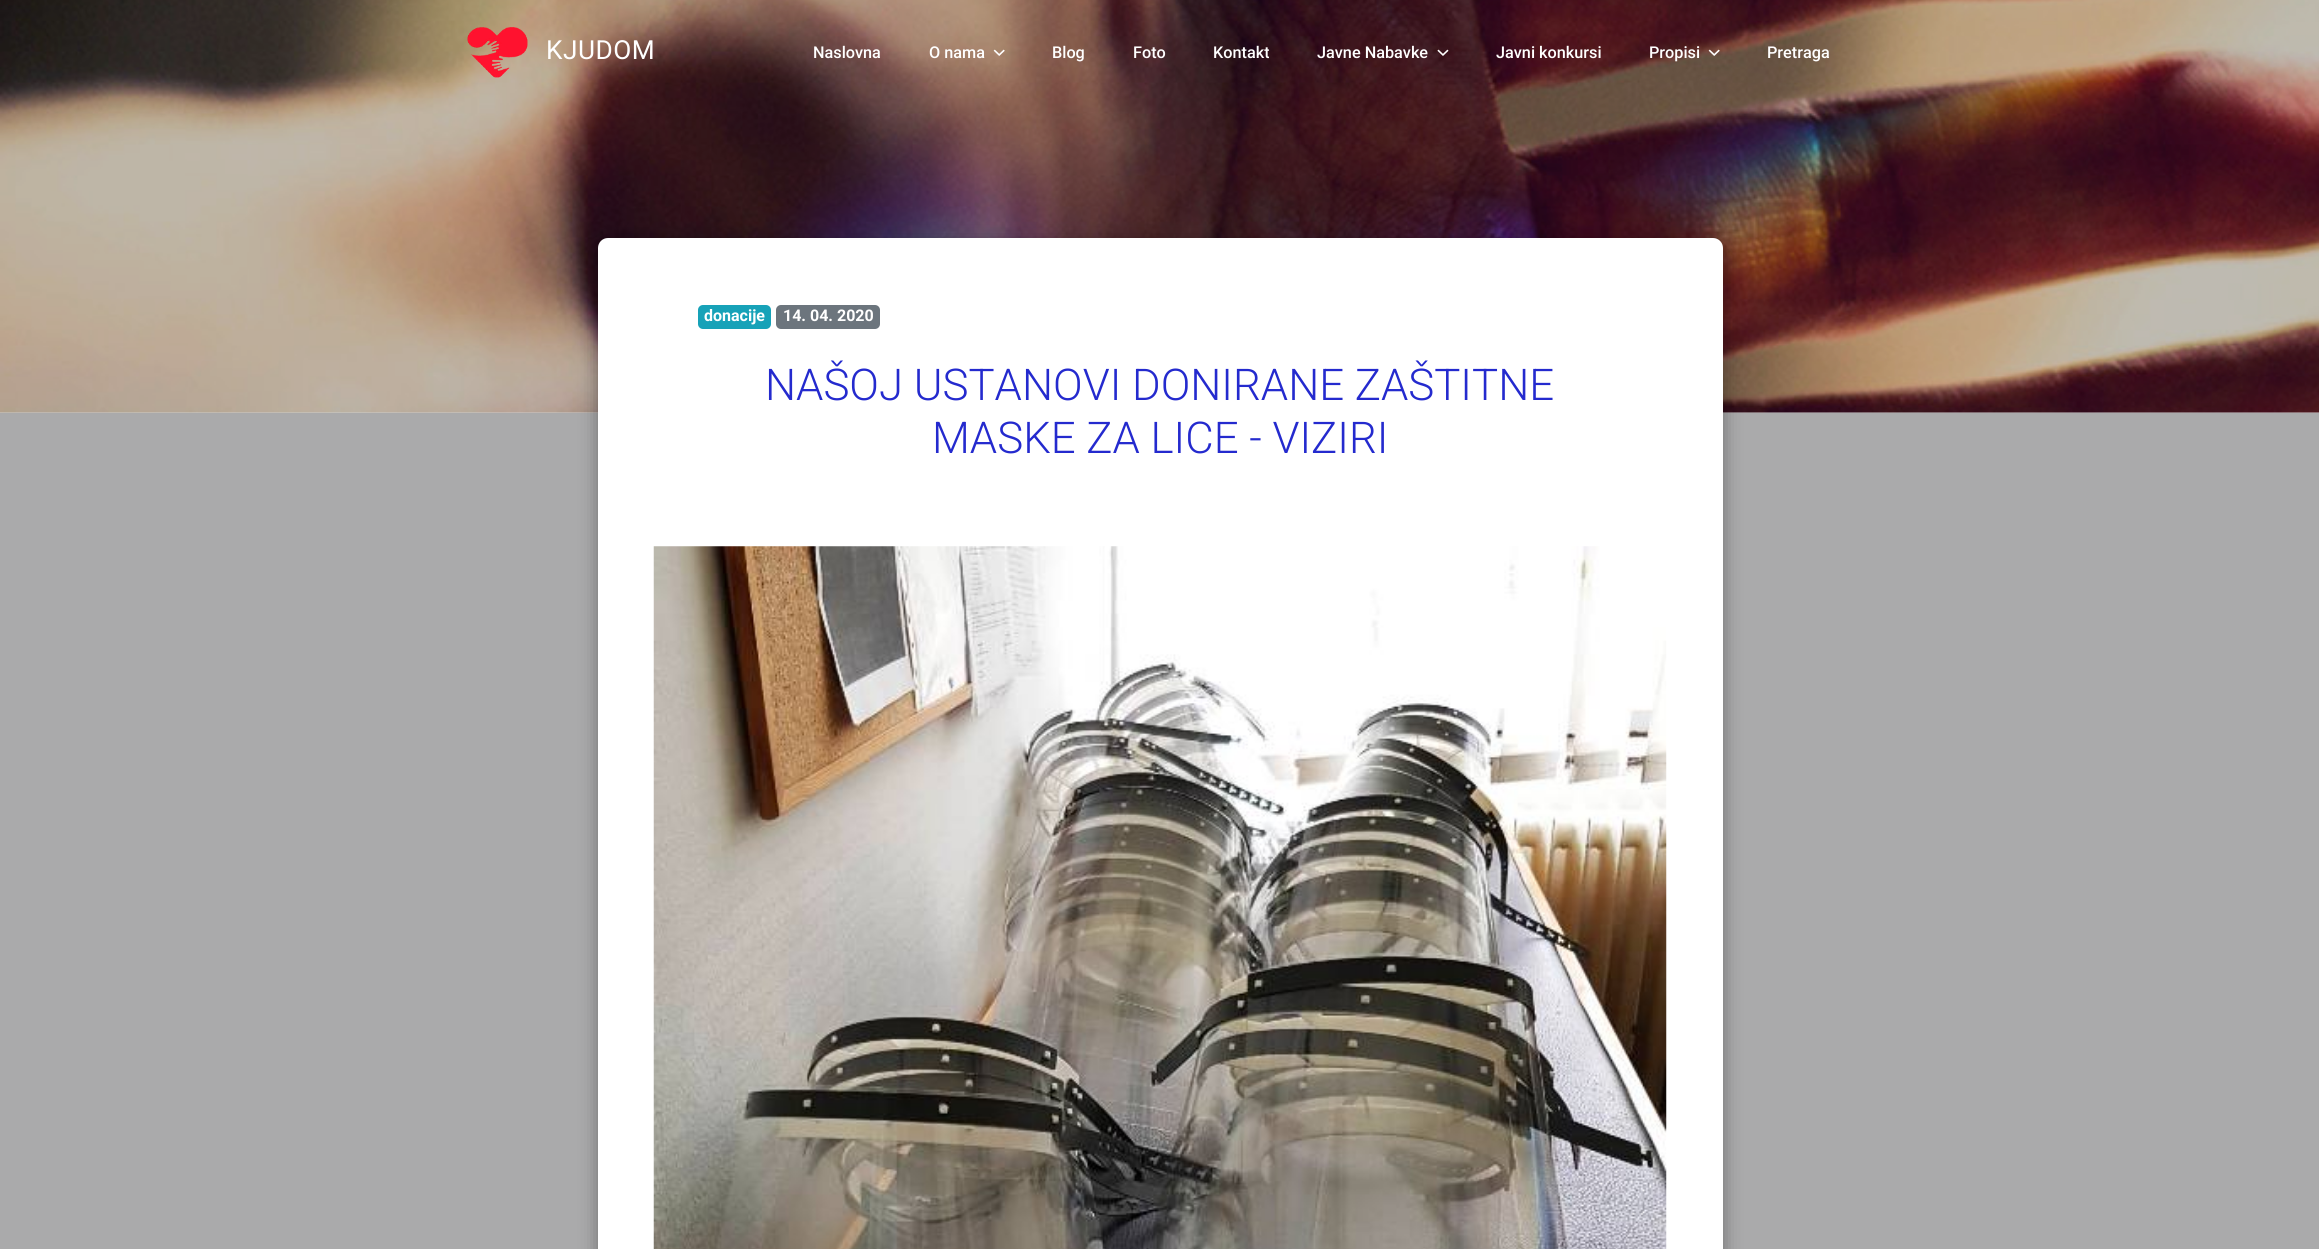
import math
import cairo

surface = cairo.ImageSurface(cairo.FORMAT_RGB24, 2319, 1249)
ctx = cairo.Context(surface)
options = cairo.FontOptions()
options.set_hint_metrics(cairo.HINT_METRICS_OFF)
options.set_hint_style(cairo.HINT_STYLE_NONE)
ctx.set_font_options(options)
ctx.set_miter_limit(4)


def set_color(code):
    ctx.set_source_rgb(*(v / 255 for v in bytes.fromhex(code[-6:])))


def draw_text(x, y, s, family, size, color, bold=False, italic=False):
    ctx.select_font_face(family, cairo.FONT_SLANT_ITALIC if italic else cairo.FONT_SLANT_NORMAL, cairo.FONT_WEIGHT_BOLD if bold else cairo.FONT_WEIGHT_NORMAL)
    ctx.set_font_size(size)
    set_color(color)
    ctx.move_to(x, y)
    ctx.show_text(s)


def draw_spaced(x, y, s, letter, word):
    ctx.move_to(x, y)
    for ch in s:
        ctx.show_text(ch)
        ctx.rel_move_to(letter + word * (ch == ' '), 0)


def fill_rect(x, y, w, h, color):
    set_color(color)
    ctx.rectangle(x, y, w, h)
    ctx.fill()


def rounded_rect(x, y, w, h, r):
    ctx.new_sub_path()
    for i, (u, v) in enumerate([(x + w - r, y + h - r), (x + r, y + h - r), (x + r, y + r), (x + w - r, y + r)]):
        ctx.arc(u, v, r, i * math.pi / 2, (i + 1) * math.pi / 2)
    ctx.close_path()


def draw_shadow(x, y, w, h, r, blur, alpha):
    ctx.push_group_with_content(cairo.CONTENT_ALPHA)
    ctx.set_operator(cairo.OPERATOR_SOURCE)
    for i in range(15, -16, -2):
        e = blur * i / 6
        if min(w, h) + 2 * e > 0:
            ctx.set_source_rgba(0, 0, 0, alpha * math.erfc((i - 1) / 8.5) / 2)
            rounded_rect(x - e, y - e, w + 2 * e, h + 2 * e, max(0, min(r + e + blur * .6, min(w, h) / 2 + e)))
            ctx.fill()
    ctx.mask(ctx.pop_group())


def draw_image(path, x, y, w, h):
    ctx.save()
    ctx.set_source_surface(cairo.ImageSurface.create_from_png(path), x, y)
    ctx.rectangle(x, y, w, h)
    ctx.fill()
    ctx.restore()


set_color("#cccccc")
ctx.paint()
draw_image("assets/img1.png", 0, 0, 2319, 413)
draw_image("assets/img2.png", 467, 27, 61, 51)
ctx.select_font_face("Roboto")
ctx.set_font_size(26.25)
set_color("#ffffff")
draw_spaced(546, 59, "KJUDOM", 0.5, 0)
draw_text(813, 58, "Naslovna", "Roboto Medium", 16.25, "#ffffff")
draw_text(929, 58, "O nama", "Roboto Medium", 16.25, "#ffffff")
draw_image("assets/img3.png", 993, 49, 12, 7)
draw_text(1052, 58, "Blog", "Roboto Medium", 16.25, "#ffffff")
draw_text(1133, 58, "Foto", "Roboto Medium", 16.25, "#ffffff")
draw_text(1213, 58, "Kontakt", "Roboto Medium", 16.25, "#ffffff")
draw_text(1317, 58, "Javne Nabavke", "Roboto Medium", 16.25, "#ffffff")
draw_image("assets/img4.png", 1437, 49, 12, 7)
draw_text(1496, 58, "Javni konkursi", "Roboto Medium", 16.25, "#ffffff")
draw_text(1649, 58, "Propisi", "Roboto Medium", 16.25, "#ffffff")
draw_image("assets/img5.png", 1708, 49, 12, 7)
draw_text(1767, 58, "Pretraga", "Roboto Medium", 16.25, "#ffffff")
fill_rect(0, 413, 2319, 836, "#aaaaab")
set_color("#000000")
draw_shadow(598, 244, 1125, 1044, 10, 9.5, 0.35)
set_color("#ffffff")
rounded_rect(598, 238, 1125, 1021, 10)
ctx.fill()
set_color("#17a2b8")
rounded_rect(698, 305, 73, 24, 5)
ctx.fill()
draw_text(704, 321, "donacije", "Roboto", 16, "#ffffff", bold=True)
set_color("#6c757d")
rounded_rect(776, 305, 104, 24, 5)
ctx.fill()
draw_text(783, 321, "14. 04. 2020", "Roboto", 16, "#ffffff", bold=True)
draw_text(765, 400, "NAŠOJ USTANOVI DONIRANE ZAŠTITNE", "Roboto Light", 43.75, "#242ace")
draw_text(932, 453, "MASKE ZA LICE - VIZIRI", "Roboto Light", 43.75, "#242ace")
draw_image("assets/img6.png", 653, 546, 1014, 703)
surface.write_to_png("output.png")
